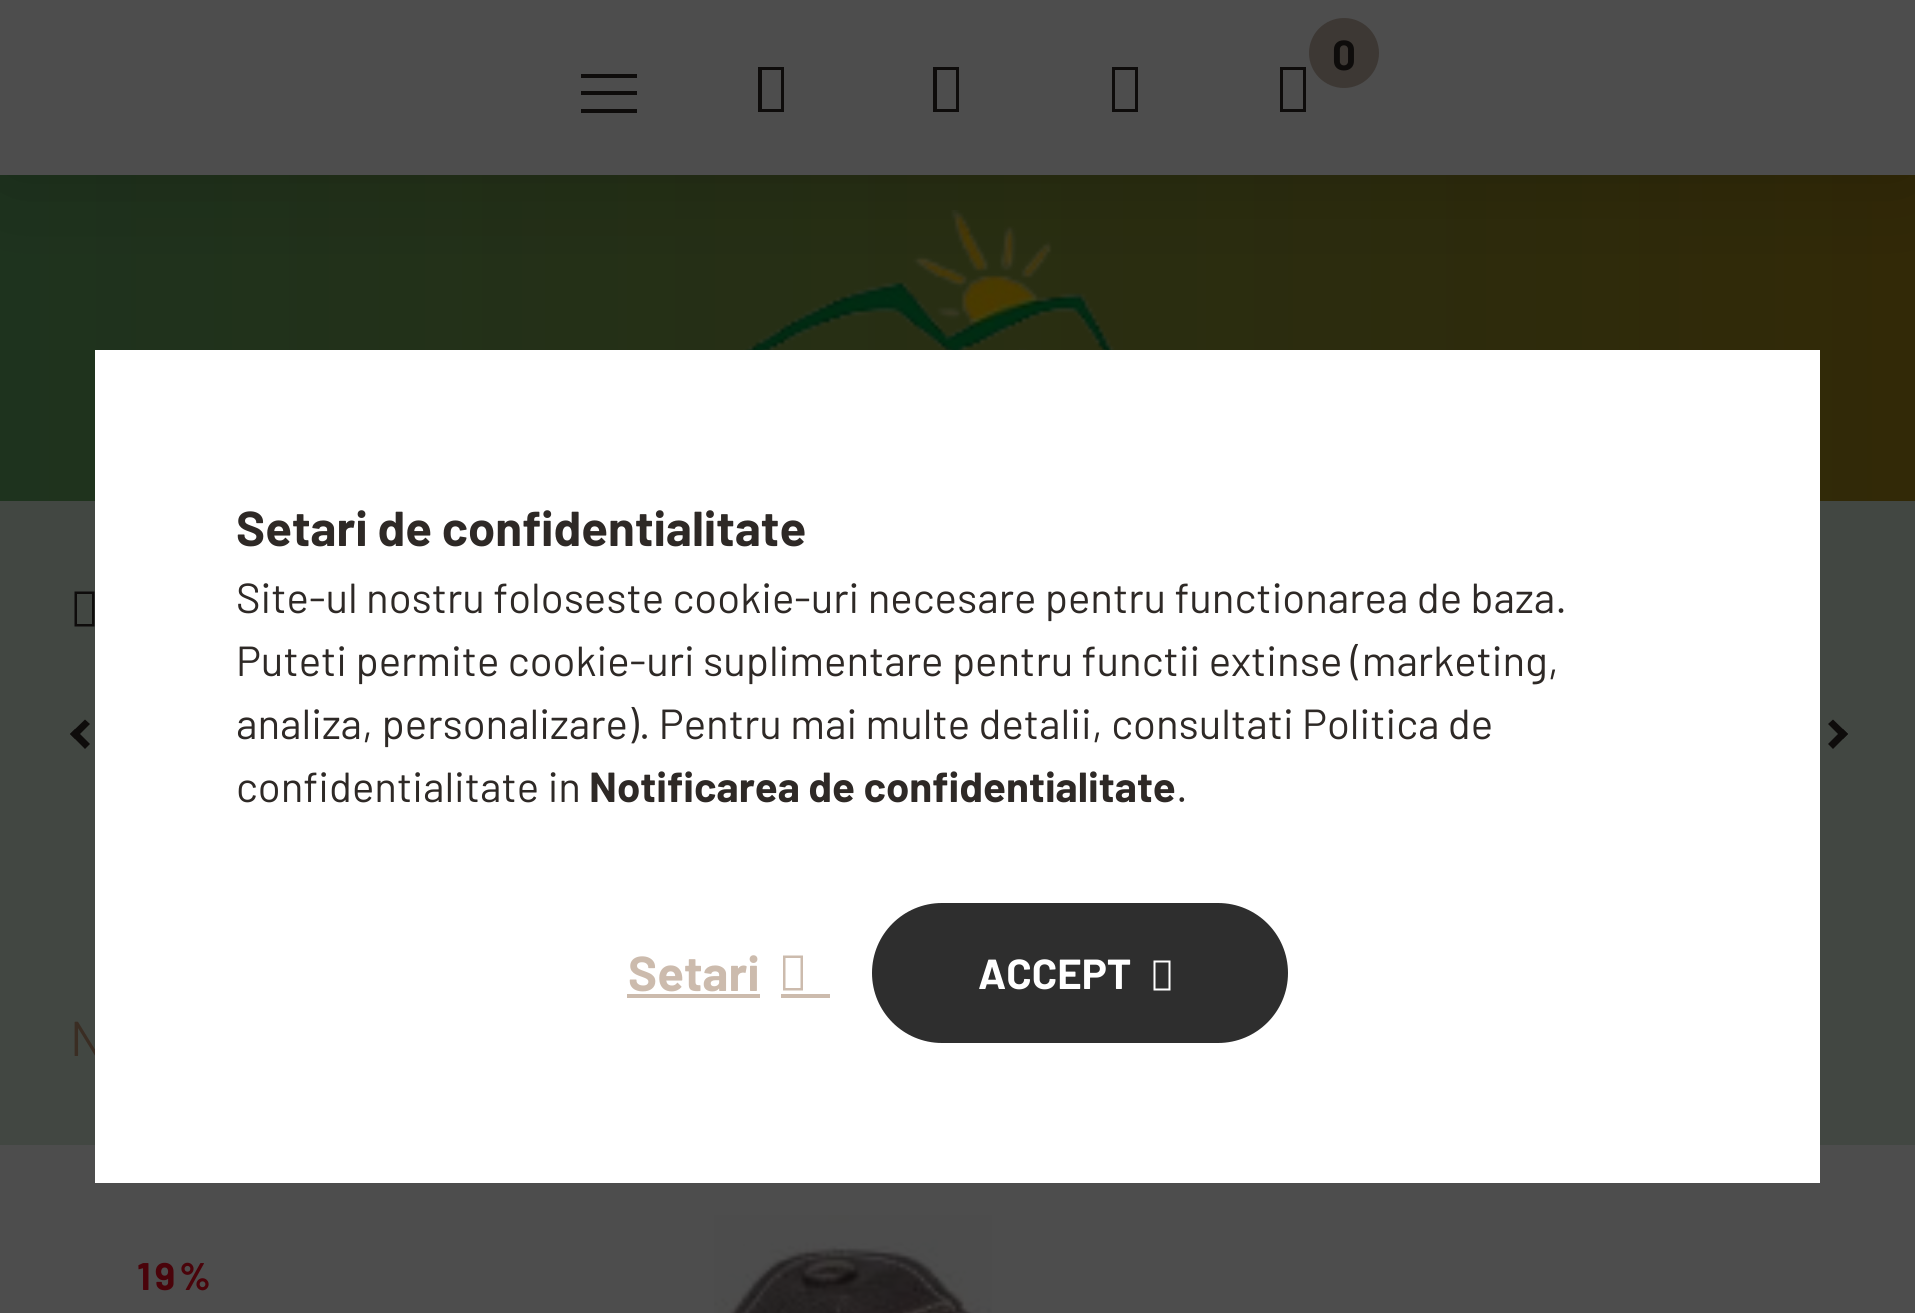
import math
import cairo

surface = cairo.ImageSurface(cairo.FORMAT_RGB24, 1915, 1313)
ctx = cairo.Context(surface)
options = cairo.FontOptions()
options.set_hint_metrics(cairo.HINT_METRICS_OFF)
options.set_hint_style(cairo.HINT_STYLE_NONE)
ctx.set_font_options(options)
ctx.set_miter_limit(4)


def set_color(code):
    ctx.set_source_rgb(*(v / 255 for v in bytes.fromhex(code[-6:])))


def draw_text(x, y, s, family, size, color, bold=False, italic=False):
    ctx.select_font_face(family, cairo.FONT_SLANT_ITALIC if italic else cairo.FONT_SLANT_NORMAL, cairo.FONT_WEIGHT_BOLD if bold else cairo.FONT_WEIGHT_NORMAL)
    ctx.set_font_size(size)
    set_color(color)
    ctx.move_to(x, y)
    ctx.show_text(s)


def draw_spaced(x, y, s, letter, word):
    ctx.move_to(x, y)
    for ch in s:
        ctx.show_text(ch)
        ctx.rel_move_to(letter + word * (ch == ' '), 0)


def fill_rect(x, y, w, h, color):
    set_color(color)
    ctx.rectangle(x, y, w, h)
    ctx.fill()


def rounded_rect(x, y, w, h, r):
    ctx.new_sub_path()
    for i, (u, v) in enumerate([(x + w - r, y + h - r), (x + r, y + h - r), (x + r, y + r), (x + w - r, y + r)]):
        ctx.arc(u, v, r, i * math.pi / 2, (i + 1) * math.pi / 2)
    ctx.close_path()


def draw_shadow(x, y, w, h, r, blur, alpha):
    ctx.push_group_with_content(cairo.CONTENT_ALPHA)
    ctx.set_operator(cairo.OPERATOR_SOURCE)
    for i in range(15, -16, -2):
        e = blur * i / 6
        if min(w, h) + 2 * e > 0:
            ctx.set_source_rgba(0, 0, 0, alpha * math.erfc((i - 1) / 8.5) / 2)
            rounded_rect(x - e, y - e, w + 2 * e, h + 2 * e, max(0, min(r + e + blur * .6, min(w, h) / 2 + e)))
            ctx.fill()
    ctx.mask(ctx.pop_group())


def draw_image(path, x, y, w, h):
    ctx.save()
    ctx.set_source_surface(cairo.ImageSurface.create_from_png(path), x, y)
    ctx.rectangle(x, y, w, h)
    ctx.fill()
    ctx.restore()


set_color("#424742")
ctx.paint()
gradient = cairo.LinearGradient(0, 658, 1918, 658)
gradient.add_color_stop_rgba(0, 0.118, 0.2, 0.118, 1)
gradient.add_color_stop_rgba(1, 0.196, 0.161, 0.027, 1)
ctx.set_source(gradient)
ctx.rectangle(0, 175, 1915, 326)
ctx.fill()
draw_image("assets/img1.png", 743, 210, 372, 140)
set_color("#000000")
draw_shadow(0, 0, 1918, 175, 0, 52.5, 0.2)
fill_rect(0, 0, 1915, 175, "#4d4d4d")
set_color("#3d3834")
ctx.arc(1344, 53, 35, 0, 2 * math.pi)
ctx.fill()
draw_text(1332, 70, "0", "Barlow", 42, "#0e0c0b", bold=True)
ctx.new_path()
ctx.move_to(1280, 112)
ctx.line_to(1280, 67)
ctx.line_to(1306, 67)
ctx.line_to(1306, 112)
ctx.close_path()
ctx.move_to(1283, 109)
ctx.line_to(1303, 109)
ctx.line_to(1303, 70)
ctx.line_to(1283, 70)
ctx.close_path()
ctx.fill()
fill_rect(581, 74, 56, 4, "#0e0c0b")
fill_rect(581, 91, 56, 4, "#0e0c0b")
fill_rect(581, 109, 56, 4, "#0e0c0b")
ctx.new_path()
ctx.move_to(758, 112)
ctx.line_to(758, 67)
ctx.line_to(784, 67)
ctx.line_to(784, 112)
ctx.close_path()
ctx.move_to(762, 109)
ctx.line_to(781, 109)
ctx.line_to(781, 70)
ctx.line_to(762, 70)
ctx.close_path()
ctx.fill()
ctx.new_path()
ctx.move_to(933, 112)
ctx.line_to(933, 67)
ctx.line_to(959, 67)
ctx.line_to(959, 112)
ctx.close_path()
ctx.move_to(937, 109)
ctx.line_to(956, 109)
ctx.line_to(956, 70)
ctx.line_to(937, 70)
ctx.close_path()
ctx.fill()
ctx.new_path()
ctx.move_to(1112, 112)
ctx.line_to(1112, 67)
ctx.line_to(1138, 67)
ctx.line_to(1138, 112)
ctx.close_path()
ctx.move_to(1115, 109)
ctx.line_to(1135, 109)
ctx.line_to(1135, 70)
ctx.line_to(1115, 70)
ctx.close_path()
ctx.fill()
ctx.new_path()
ctx.move_to(74.5, 626.5)
ctx.line_to(74.5, 591.5)
ctx.line_to(94.5, 591.5)
ctx.line_to(94.5, 626.5)
ctx.close_path()
ctx.move_to(77, 624)
ctx.line_to(92, 624)
ctx.line_to(92, 594)
ctx.line_to(77, 594)
ctx.close_path()
ctx.fill()
ctx.new_path()
ctx.move_to(70, 734)
ctx.line_to(85, 719.5)
ctx.line_to(90, 724)
ctx.line_to(75, 739)
ctx.close_path()
ctx.fill()
ctx.new_path()
ctx.move_to(75, 729)
ctx.line_to(90, 744)
ctx.line_to(85, 749)
ctx.line_to(70, 734)
ctx.close_path()
ctx.fill()
ctx.new_path()
ctx.move_to(1828, 744)
ctx.line_to(1843, 729)
ctx.line_to(1848, 734)
ctx.line_to(1833, 749)
ctx.close_path()
ctx.fill()
ctx.new_path()
ctx.move_to(1833, 719.5)
ctx.line_to(1848, 734)
ctx.line_to(1843, 739)
ctx.line_to(1828, 724)
ctx.close_path()
ctx.fill()
draw_text(70, 1056, "N", "Barlow", 49, "#3a2d23")
fill_rect(0, 1145, 1915, 168, "#4d4d4d")
ctx.select_font_face("Barlow", cairo.FONT_SLANT_NORMAL, cairo.FONT_WEIGHT_BOLD)
ctx.set_font_size(38.5)
set_color("#4a030a")
draw_spaced(137, 1290, "19%", 4, 0)
draw_image("assets/img2.png", 714, 1215, 278, 98)
fill_rect(95, 350, 1725, 833, "#ffffff")
draw_text(236, 546, "Setari de confidentialitate", "Barlow", 49, "#2e2926", bold=True)
draw_text(236, 613, "Site-ul nostru foloseste cookie-uri necesare pentru functionarea de baza.", "Barlow", 42, "#2e2926")
draw_text(236, 676, "Puteti permite cookie-uri suplimentare pentru functii extinse (marketing,", "Barlow", 42, "#2e2926")
draw_text(236, 739, "analiza, personalizare). Pentru mai multe detalii, consultati Politica de", "Barlow", 42, "#2e2926")
draw_text(236, 802, "confidentialitate in", "Barlow", 42, "#2e2926")
draw_text(589, 802, "Notificarea de confidentialitate", "Barlow", 42, "#2e2926", bold=True)
draw_text(1176, 802, ".", "Barlow", 42, "#2e2926")
draw_text(628, 991, "Setari", "Barlow", 49, "#ccbbad", bold=True)
fill_rect(627, 994, 133, 4, "#ccbbad")
ctx.new_path()
ctx.move_to(783, 990.5)
ctx.line_to(783, 955.5)
ctx.line_to(803, 955.5)
ctx.line_to(803, 990.5)
ctx.close_path()
ctx.move_to(785.5, 988)
ctx.line_to(800.5, 988)
ctx.line_to(800.5, 958)
ctx.line_to(785.5, 958)
ctx.close_path()
ctx.fill()
fill_rect(781, 994, 49, 4, "#ccbbad")
gradient = cairo.LinearGradient(873, 973, 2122, 973)
gradient.add_color_stop_rgba(0.33, 0.18, 0.18, 0.18, 1)
gradient.add_color_stop_rgba(0.67, 0.369, 0.969, 0.557, 1)
ctx.set_source(gradient)
rounded_rect(872, 903, 416, 140, 70)
ctx.fill()
draw_text(978, 989, "ACCEPT", "Barlow", 42, "#ffffff", bold=True)
ctx.new_path()
ctx.move_to(1153.5, 990.5)
ctx.line_to(1153.5, 960.5)
ctx.line_to(1170.5, 960.5)
ctx.line_to(1170.5, 990.5)
ctx.close_path()
ctx.move_to(1155.5, 988.5)
ctx.line_to(1168.5, 988.5)
ctx.line_to(1168.5, 962.5)
ctx.line_to(1155.5, 962.5)
ctx.close_path()
ctx.fill()
surface.write_to_png("output.png")
